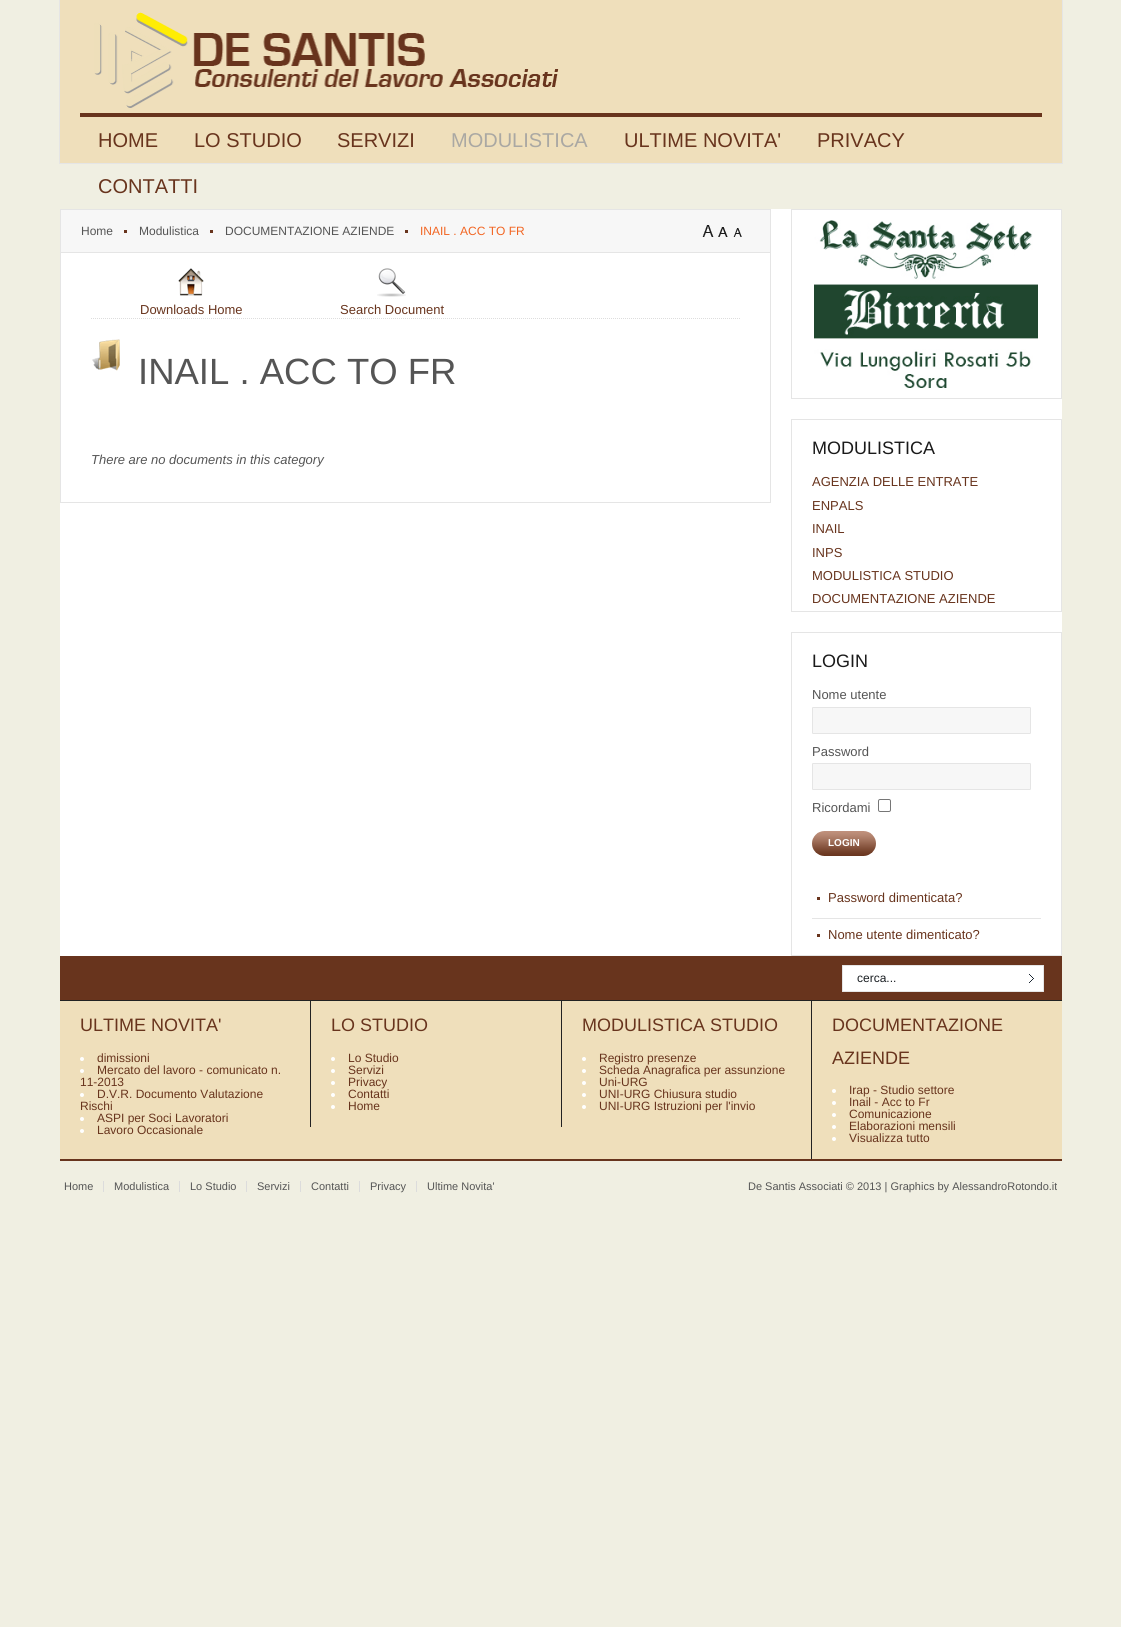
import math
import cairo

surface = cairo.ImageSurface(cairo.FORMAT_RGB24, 1121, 1627)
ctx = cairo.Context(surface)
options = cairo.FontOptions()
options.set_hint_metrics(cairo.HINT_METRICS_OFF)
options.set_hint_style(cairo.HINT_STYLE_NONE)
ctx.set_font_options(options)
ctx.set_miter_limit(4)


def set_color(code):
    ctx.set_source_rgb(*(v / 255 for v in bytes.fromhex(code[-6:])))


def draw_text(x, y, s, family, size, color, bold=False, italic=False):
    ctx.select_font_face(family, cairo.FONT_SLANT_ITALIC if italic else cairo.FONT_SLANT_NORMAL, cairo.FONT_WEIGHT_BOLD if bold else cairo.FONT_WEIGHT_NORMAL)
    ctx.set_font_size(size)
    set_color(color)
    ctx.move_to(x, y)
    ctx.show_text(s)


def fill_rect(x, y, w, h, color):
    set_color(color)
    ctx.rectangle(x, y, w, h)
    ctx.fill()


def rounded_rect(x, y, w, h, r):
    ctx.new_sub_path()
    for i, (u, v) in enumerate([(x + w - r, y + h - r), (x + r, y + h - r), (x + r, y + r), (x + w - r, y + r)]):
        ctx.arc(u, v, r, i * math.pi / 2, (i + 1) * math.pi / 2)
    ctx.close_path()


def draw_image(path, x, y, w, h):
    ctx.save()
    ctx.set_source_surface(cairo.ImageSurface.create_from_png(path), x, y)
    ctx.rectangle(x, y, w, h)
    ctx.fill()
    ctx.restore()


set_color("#f0efe2")
ctx.paint()
fill_rect(60, 0, 1002, 163, "#efdfbb")
fill_rect(1062, 0, 1, 164, "#e5e5e5")
fill_rect(60, 163, 1003, 1, "#e5e5e5")
fill_rect(59, 0, 1, 164, "#e5e5e5")
draw_image("assets/img1.png", 94, 12, 465, 96)
fill_rect(80, 113, 962, 4, "#68341d")
draw_text(98, 147, "HOME", "Liberation Sans", 20, "#68341d")
draw_text(194, 147, "LO STUDIO", "Liberation Sans", 20, "#68341d")
draw_text(337, 147, "SERVIZI", "Liberation Sans", 20, "#68341d")
draw_text(451, 147, "MODULISTICA", "Liberation Sans", 20, "#aaa8a3")
draw_text(624, 147, "ULTIME NOVITA'", "Liberation Sans", 20, "#68341d")
draw_text(817, 147, "PRIVACY", "Liberation Sans", 20, "#68341d")
draw_text(98, 193, "CONTATTI", "Liberation Sans", 20, "#68341d")
fill_rect(60, 209, 1002, 747, "#ffffff")
ctx.rectangle(60.5, 209.5, 710, 293)
set_color("#e5e5e5")
ctx.set_line_width(1)
ctx.stroke()
fill_rect(61, 210, 709, 42, "#f7f7f7")
fill_rect(61, 252, 709, 1, "#e5e5e5")
draw_text(81, 235, "Home", "Liberation Sans", 12, "#555555")
fill_rect(124, 230, 3, 3, "#68341d")
draw_text(139, 235, "Modulistica", "Liberation Sans", 12, "#555555")
fill_rect(210, 230, 3, 3, "#68341d")
draw_text(225, 235, "DOCUMENTAZIONE AZIENDE", "Liberation Sans", 12, "#555555")
fill_rect(405, 230, 3, 3, "#68341d")
draw_text(420, 235, "INAIL . ACC TO FR", "Liberation Sans", 12, "#f26522")
draw_image("assets/img2.png", 702, 225, 12, 12)
draw_image("assets/img3.png", 718, 227, 16, 10)
draw_image("assets/img4.png", 734, 228, 8, 9)
ctx.new_path()
ctx.move_to(91, 318.5)
ctx.line_to(740, 318.5)
set_color("#dddddd")
ctx.set_dash([1, 1])
ctx.stroke()
draw_image("assets/img5.png", 178, 268, 26, 28)
draw_text(140, 314, "Downloads Home", "Liberation Sans", 13, "#68341d")
draw_image("assets/img6.png", 377, 268, 29, 29)
draw_text(340, 314, "Search Document", "Liberation Sans", 13, "#68341d")
draw_image("assets/img7.png", 92, 339, 28, 32)
draw_text(138, 384, "INAIL . ACC TO FR", "Liberation Sans", 36.5, "#555555")
draw_text(91, 464, "There are no documents in this category", "Liberation Sans", 13, "#555555", italic=True)
ctx.rectangle(791.5, 209.5, 270, 189)
set_color("#e5e5e5")
ctx.set_dash([])
ctx.stroke()
draw_image("assets/img8.png", 814, 220, 224, 168)
ctx.rectangle(791.5, 419.5, 270, 192)
ctx.stroke()
draw_text(812, 454, "MODULISTICA", "Liberation Sans", 18, "#1a1a1a")
draw_text(812, 486, "AGENZIA DELLE ENTRATE", "Liberation Sans", 13, "#68341d")
draw_text(812, 510, "ENPALS", "Liberation Sans", 13, "#68341d")
draw_text(812, 533, "INAIL", "Liberation Sans", 13, "#68341d")
draw_text(812, 557, "INPS", "Liberation Sans", 13, "#68341d")
draw_text(812, 580, "MODULISTICA STUDIO", "Liberation Sans", 13, "#68341d")
draw_text(812, 603, "DOCUMENTAZIONE AZIENDE", "Liberation Sans", 13, "#68341d")
ctx.rectangle(791.5, 632.5, 270, 323)
set_color("#e5e5e5")
ctx.stroke()
draw_text(812, 667, "LOGIN", "Liberation Sans", 18, "#1a1a1a")
draw_text(812, 699, "Nome utente", "Liberation Sans", 13, "#555555")
set_color("#f7f7f7")
rounded_rect(812.5, 707.5, 218, 26, 0.5)
ctx.fill_preserve()
set_color("#e5e5e5")
ctx.stroke()
draw_text(812, 756, "Password", "Liberation Sans", 13, "#555555")
set_color("#f7f7f7")
rounded_rect(812.5, 763.5, 218, 26, 0.5)
ctx.fill_preserve()
set_color("#e5e5e5")
ctx.stroke()
draw_text(812, 812, "Ricordami", "Liberation Sans", 13, "#555555")
rounded_rect(878.5, 799.5, 12, 12, 1.5)
set_color("#767676")
ctx.stroke()
draw_image("assets/img9.png", 812, 831, 64, 25)
draw_text(828, 846, "LOGIN", "Liberation Sans", 10, "#ffffff", bold=True)
fill_rect(817, 897, 3, 3, "#68341d")
draw_text(828, 902, "Password dimenticata?", "Liberation Sans", 13, "#68341d")
fill_rect(817, 934, 3, 3, "#68341d")
fill_rect(812, 918, 229, 1, "#e5e5e5")
draw_text(828, 939, "Nome utente dimenticato?", "Liberation Sans", 13, "#68341d")
fill_rect(60, 956, 1002, 44, "#68341d")
set_color("#ffffff")
rounded_rect(842, 965, 202, 27, 1)
ctx.fill()
draw_image("assets/img10.png", 1029, 974, 5, 9)
rounded_rect(842.5, 965.5, 201, 26, 0.5)
set_color("#e5e5e5")
ctx.stroke()
draw_text(857, 982, "cerca...", "Liberation Sans", 12, "#1b1f23")
fill_rect(60, 1001, 1002, 158, "#efdfbb")
fill_rect(60, 1000, 1002, 1, "#222222")
draw_text(80, 1031, "ULTIME NOVITA'", "Liberation Sans", 18, "#68341d")
set_color("#ffffff")
ctx.new_path()
ctx.arc(82, 1059, 2, 0, 2 * math.pi)
ctx.fill()
draw_text(97, 1062, "dimissioni", "Liberation Sans", 12, "#68341d")
set_color("#ffffff")
ctx.new_path()
ctx.arc(82, 1071, 2, 0, 2 * math.pi)
ctx.fill()
draw_text(97, 1074, "Mercato del lavoro - comunicato n.", "Liberation Sans", 12, "#68341d")
draw_text(80, 1086, "11-2013", "Liberation Sans", 12, "#68341d")
set_color("#ffffff")
ctx.new_path()
ctx.arc(82, 1095, 2, 0, 2 * math.pi)
ctx.fill()
draw_text(97, 1098, "D.V.R. Documento Valutazione", "Liberation Sans", 12, "#68341d")
draw_text(80, 1110, "Rischi", "Liberation Sans", 12, "#68341d")
set_color("#ffffff")
ctx.new_path()
ctx.arc(82, 1119, 2, 0, 2 * math.pi)
ctx.fill()
draw_text(97, 1122, "ASPI per Soci Lavoratori", "Liberation Sans", 12, "#68341d")
set_color("#ffffff")
ctx.new_path()
ctx.arc(82, 1131, 2, 0, 2 * math.pi)
ctx.fill()
draw_text(97, 1134, "Lavoro Occasionale", "Liberation Sans", 12, "#68341d")
fill_rect(310, 1001, 1, 126, "#222222")
draw_text(331, 1031, "LO STUDIO", "Liberation Sans", 18, "#68341d")
set_color("#ffffff")
ctx.new_path()
ctx.arc(333, 1059, 2, 0, 2 * math.pi)
ctx.fill()
draw_text(348, 1062, "Lo Studio", "Liberation Sans", 12, "#68341d")
set_color("#ffffff")
ctx.new_path()
ctx.arc(333, 1071, 2, 0, 2 * math.pi)
ctx.fill()
draw_text(348, 1074, "Servizi", "Liberation Sans", 12, "#68341d")
set_color("#ffffff")
ctx.new_path()
ctx.arc(333, 1083, 2, 0, 2 * math.pi)
ctx.fill()
draw_text(348, 1086, "Privacy", "Liberation Sans", 12, "#68341d")
set_color("#ffffff")
ctx.new_path()
ctx.arc(333, 1095, 2, 0, 2 * math.pi)
ctx.fill()
draw_text(348, 1098, "Contatti", "Liberation Sans", 12, "#68341d")
set_color("#ffffff")
ctx.new_path()
ctx.arc(333, 1107, 2, 0, 2 * math.pi)
ctx.fill()
draw_text(348, 1110, "Home", "Liberation Sans", 12, "#68341d")
fill_rect(561, 1001, 1, 126, "#222222")
draw_text(582, 1031, "MODULISTICA STUDIO", "Liberation Sans", 18, "#68341d")
set_color("#ffffff")
ctx.new_path()
ctx.arc(584, 1059, 2, 0, 2 * math.pi)
ctx.fill()
draw_text(599, 1062, "Registro presenze", "Liberation Sans", 12, "#68341d")
set_color("#ffffff")
ctx.new_path()
ctx.arc(584, 1071, 2, 0, 2 * math.pi)
ctx.fill()
draw_text(599, 1074, "Scheda Anagrafica per assunzione", "Liberation Sans", 12, "#68341d")
set_color("#ffffff")
ctx.new_path()
ctx.arc(584, 1083, 2, 0, 2 * math.pi)
ctx.fill()
draw_text(599, 1086, "Uni-URG", "Liberation Sans", 12, "#68341d")
set_color("#ffffff")
ctx.new_path()
ctx.arc(584, 1095, 2, 0, 2 * math.pi)
ctx.fill()
draw_text(599, 1098, "UNI-URG Chiusura studio", "Liberation Sans", 12, "#68341d")
set_color("#ffffff")
ctx.new_path()
ctx.arc(584, 1107, 2, 0, 2 * math.pi)
ctx.fill()
draw_text(599, 1110, "UNI-URG Istruzioni per l'invio", "Liberation Sans", 12, "#68341d")
fill_rect(811, 1001, 1, 158, "#222222")
draw_text(832, 1031, "DOCUMENTAZIONE", "Liberation Sans", 18, "#68341d")
draw_text(832, 1064, "AZIENDE", "Liberation Sans", 18, "#68341d")
set_color("#ffffff")
ctx.new_path()
ctx.arc(834, 1091, 2, 0, 2 * math.pi)
ctx.fill()
draw_text(849, 1094, "Irap - Studio settore", "Liberation Sans", 12, "#68341d")
set_color("#ffffff")
ctx.new_path()
ctx.arc(834, 1103, 2, 0, 2 * math.pi)
ctx.fill()
draw_text(849, 1106, "Inail - Acc to Fr", "Liberation Sans", 12, "#68341d")
set_color("#ffffff")
ctx.new_path()
ctx.arc(834, 1115, 2, 0, 2 * math.pi)
ctx.fill()
draw_text(849, 1118, "Comunicazione", "Liberation Sans", 12, "#68341d")
set_color("#ffffff")
ctx.new_path()
ctx.arc(834, 1127, 2, 0, 2 * math.pi)
ctx.fill()
draw_text(849, 1130, "Elaborazioni mensili", "Liberation Sans", 12, "#68341d")
set_color("#ffffff")
ctx.new_path()
ctx.arc(834, 1139, 2, 0, 2 * math.pi)
ctx.fill()
draw_text(849, 1142, "Visualizza tutto", "Liberation Sans", 12, "#68341d")
fill_rect(60, 1159, 1002, 2, "#68341d")
draw_text(64, 1190, "Home", "Liberation Sans", 11, "#555555")
fill_rect(103, 1181, 1, 11, "#dcdcdc")
draw_text(114, 1190, "Modulistica", "Liberation Sans", 11, "#555555")
fill_rect(179, 1181, 1, 11, "#dcdcdc")
draw_text(190, 1190, "Lo Studio", "Liberation Sans", 11, "#555555")
fill_rect(246, 1181, 1, 11, "#dcdcdc")
draw_text(257, 1190, "Servizi", "Liberation Sans", 11, "#555555")
fill_rect(300, 1181, 1, 11, "#dcdcdc")
draw_text(311, 1190, "Contatti", "Liberation Sans", 11, "#555555")
fill_rect(359, 1181, 1, 11, "#dcdcdc")
draw_text(370, 1190, "Privacy", "Liberation Sans", 11, "#555555")
fill_rect(416, 1181, 1, 11, "#dcdcdc")
draw_text(427, 1190, "Ultime Novita'", "Liberation Sans", 11, "#555555")
draw_text(748, 1190, "De Santis Associati © 2013 | Graphics by AlessandroRotondo.it", "Liberation Sans", 11, "#555555")
surface.write_to_png("output.png")
